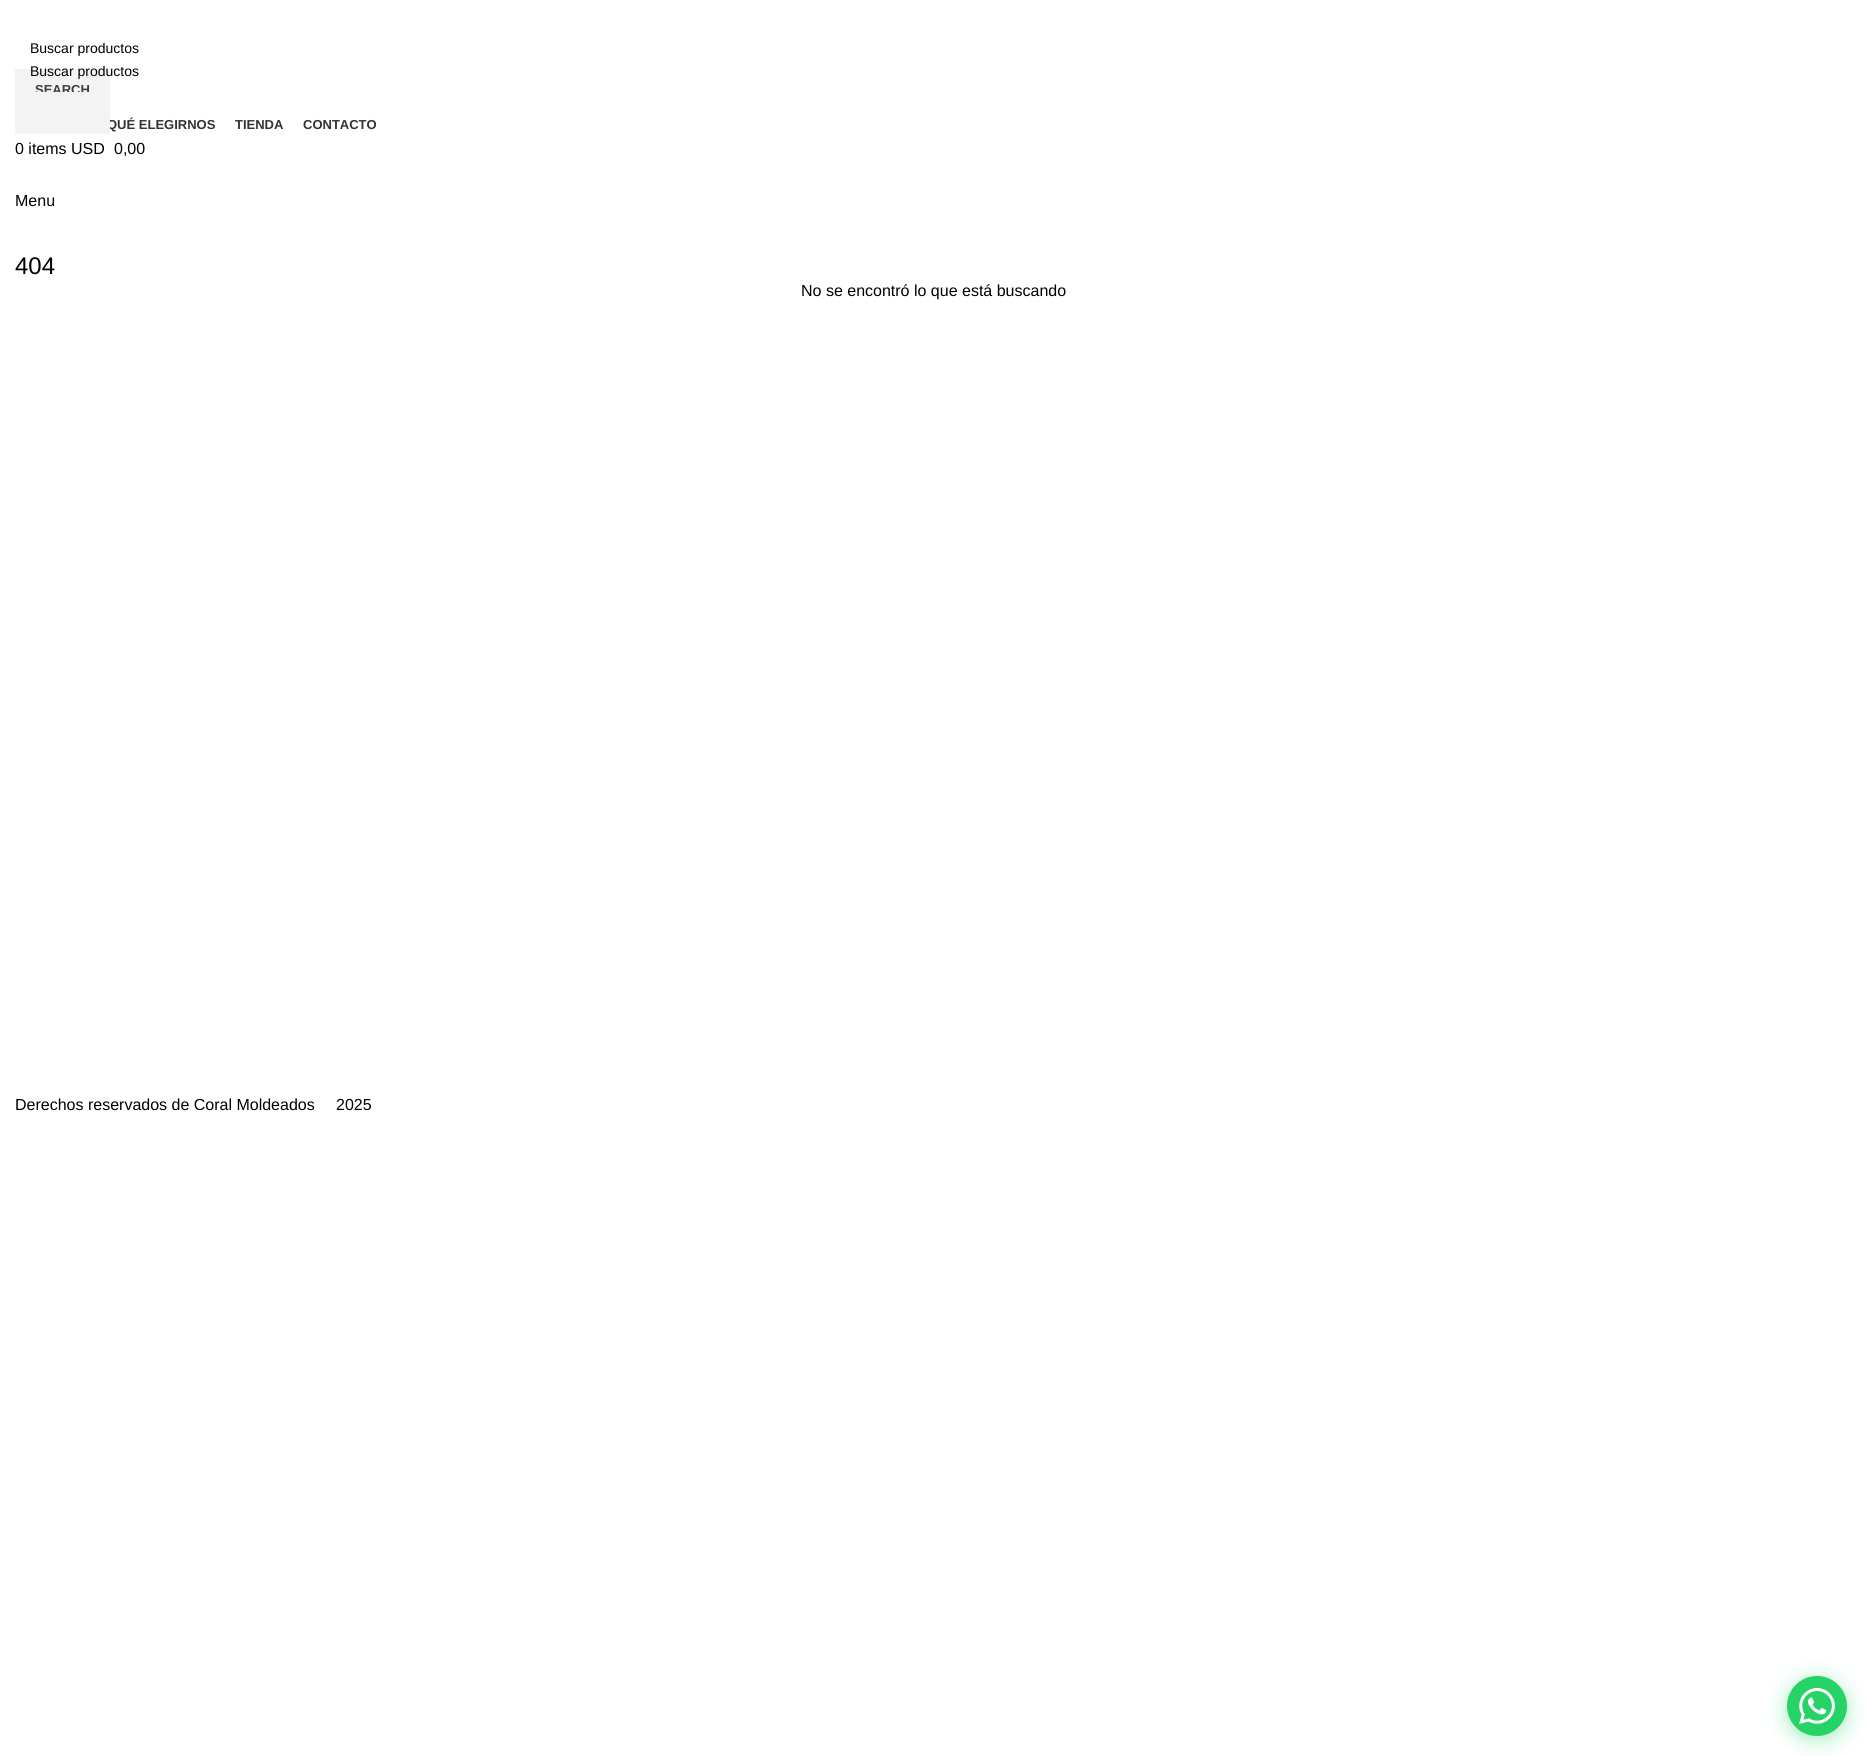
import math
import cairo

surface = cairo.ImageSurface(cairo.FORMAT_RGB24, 1867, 1756)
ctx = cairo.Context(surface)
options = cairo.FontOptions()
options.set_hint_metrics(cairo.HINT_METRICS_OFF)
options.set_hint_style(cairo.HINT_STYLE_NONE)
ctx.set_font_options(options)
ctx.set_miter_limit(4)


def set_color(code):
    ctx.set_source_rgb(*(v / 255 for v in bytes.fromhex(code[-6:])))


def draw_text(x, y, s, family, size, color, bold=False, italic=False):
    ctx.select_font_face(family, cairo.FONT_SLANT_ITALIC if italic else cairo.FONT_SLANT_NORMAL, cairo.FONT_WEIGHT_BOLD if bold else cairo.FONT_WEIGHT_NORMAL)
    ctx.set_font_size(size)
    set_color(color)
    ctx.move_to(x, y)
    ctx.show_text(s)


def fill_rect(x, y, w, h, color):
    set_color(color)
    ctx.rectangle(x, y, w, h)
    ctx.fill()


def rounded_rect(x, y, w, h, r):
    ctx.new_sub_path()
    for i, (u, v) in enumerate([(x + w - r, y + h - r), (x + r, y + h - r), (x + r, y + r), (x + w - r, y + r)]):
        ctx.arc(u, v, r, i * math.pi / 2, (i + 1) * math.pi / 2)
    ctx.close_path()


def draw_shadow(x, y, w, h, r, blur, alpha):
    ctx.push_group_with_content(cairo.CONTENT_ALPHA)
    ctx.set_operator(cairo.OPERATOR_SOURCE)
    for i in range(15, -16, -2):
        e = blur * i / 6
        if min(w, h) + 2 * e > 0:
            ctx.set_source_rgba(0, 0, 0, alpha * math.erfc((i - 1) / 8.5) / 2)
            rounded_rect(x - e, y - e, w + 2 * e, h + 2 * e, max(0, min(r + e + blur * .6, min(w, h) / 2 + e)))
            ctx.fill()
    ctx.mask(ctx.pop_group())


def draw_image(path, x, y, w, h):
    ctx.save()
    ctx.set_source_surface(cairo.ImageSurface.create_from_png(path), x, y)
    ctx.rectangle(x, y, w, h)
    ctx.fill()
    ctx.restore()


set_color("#ffffff")
ctx.paint()
draw_text(30, 53, "Buscar productos", "Liberation Sans", 14, "#000000")
fill_rect(15, 69, 95, 23, "#f3f3f3")
draw_text(35, 94, "SEARCH", "Liberation Sans", 13, "#3e3e3e", bold=True)
draw_text(107, 129, "QUÉ ELEGIRNOS", "Liberation Sans", 13, "#333333", bold=True)
draw_text(235, 129, "TIENDA", "Liberation Sans", 13, "#333333", bold=True)
draw_text(303, 129, "CONTACTO", "Liberation Sans", 13, "#333333", bold=True)
draw_text(15, 154, "0 items USD", "Liberation Sans", 16, "#000000")
draw_text(114, 154, "0,00", "Liberation Sans", 16, "#000000")
draw_text(15, 206, "Menu", "Liberation Sans", 16, "#000000")
draw_text(15, 274, "404", "Liberation Sans", 24, "#000000")
draw_text(801, 296, "No se encontró lo que está buscando", "Liberation Sans", 16, "#000000")
draw_text(15, 1110, "Derechos reservados de Coral Moldeados", "Liberation Sans", 16, "#000000")
draw_text(336, 1110, "2025", "Liberation Sans", 16, "#000000")
draw_text(30, 76, "Buscar productos", "Liberation Sans", 14, "#000000")
fill_rect(15, 92, 95, 42, "#f3f3f3")
set_color("#25d366")
draw_shadow(1787, 1680, 60, 60, 30, 10, 0.4)
set_color("#25d366")
ctx.arc(1817, 1706, 30, 0, 2 * math.pi)
ctx.fill()
draw_image("assets/img1.png", 1799, 1688, 36, 36)
surface.write_to_png("output.png")
